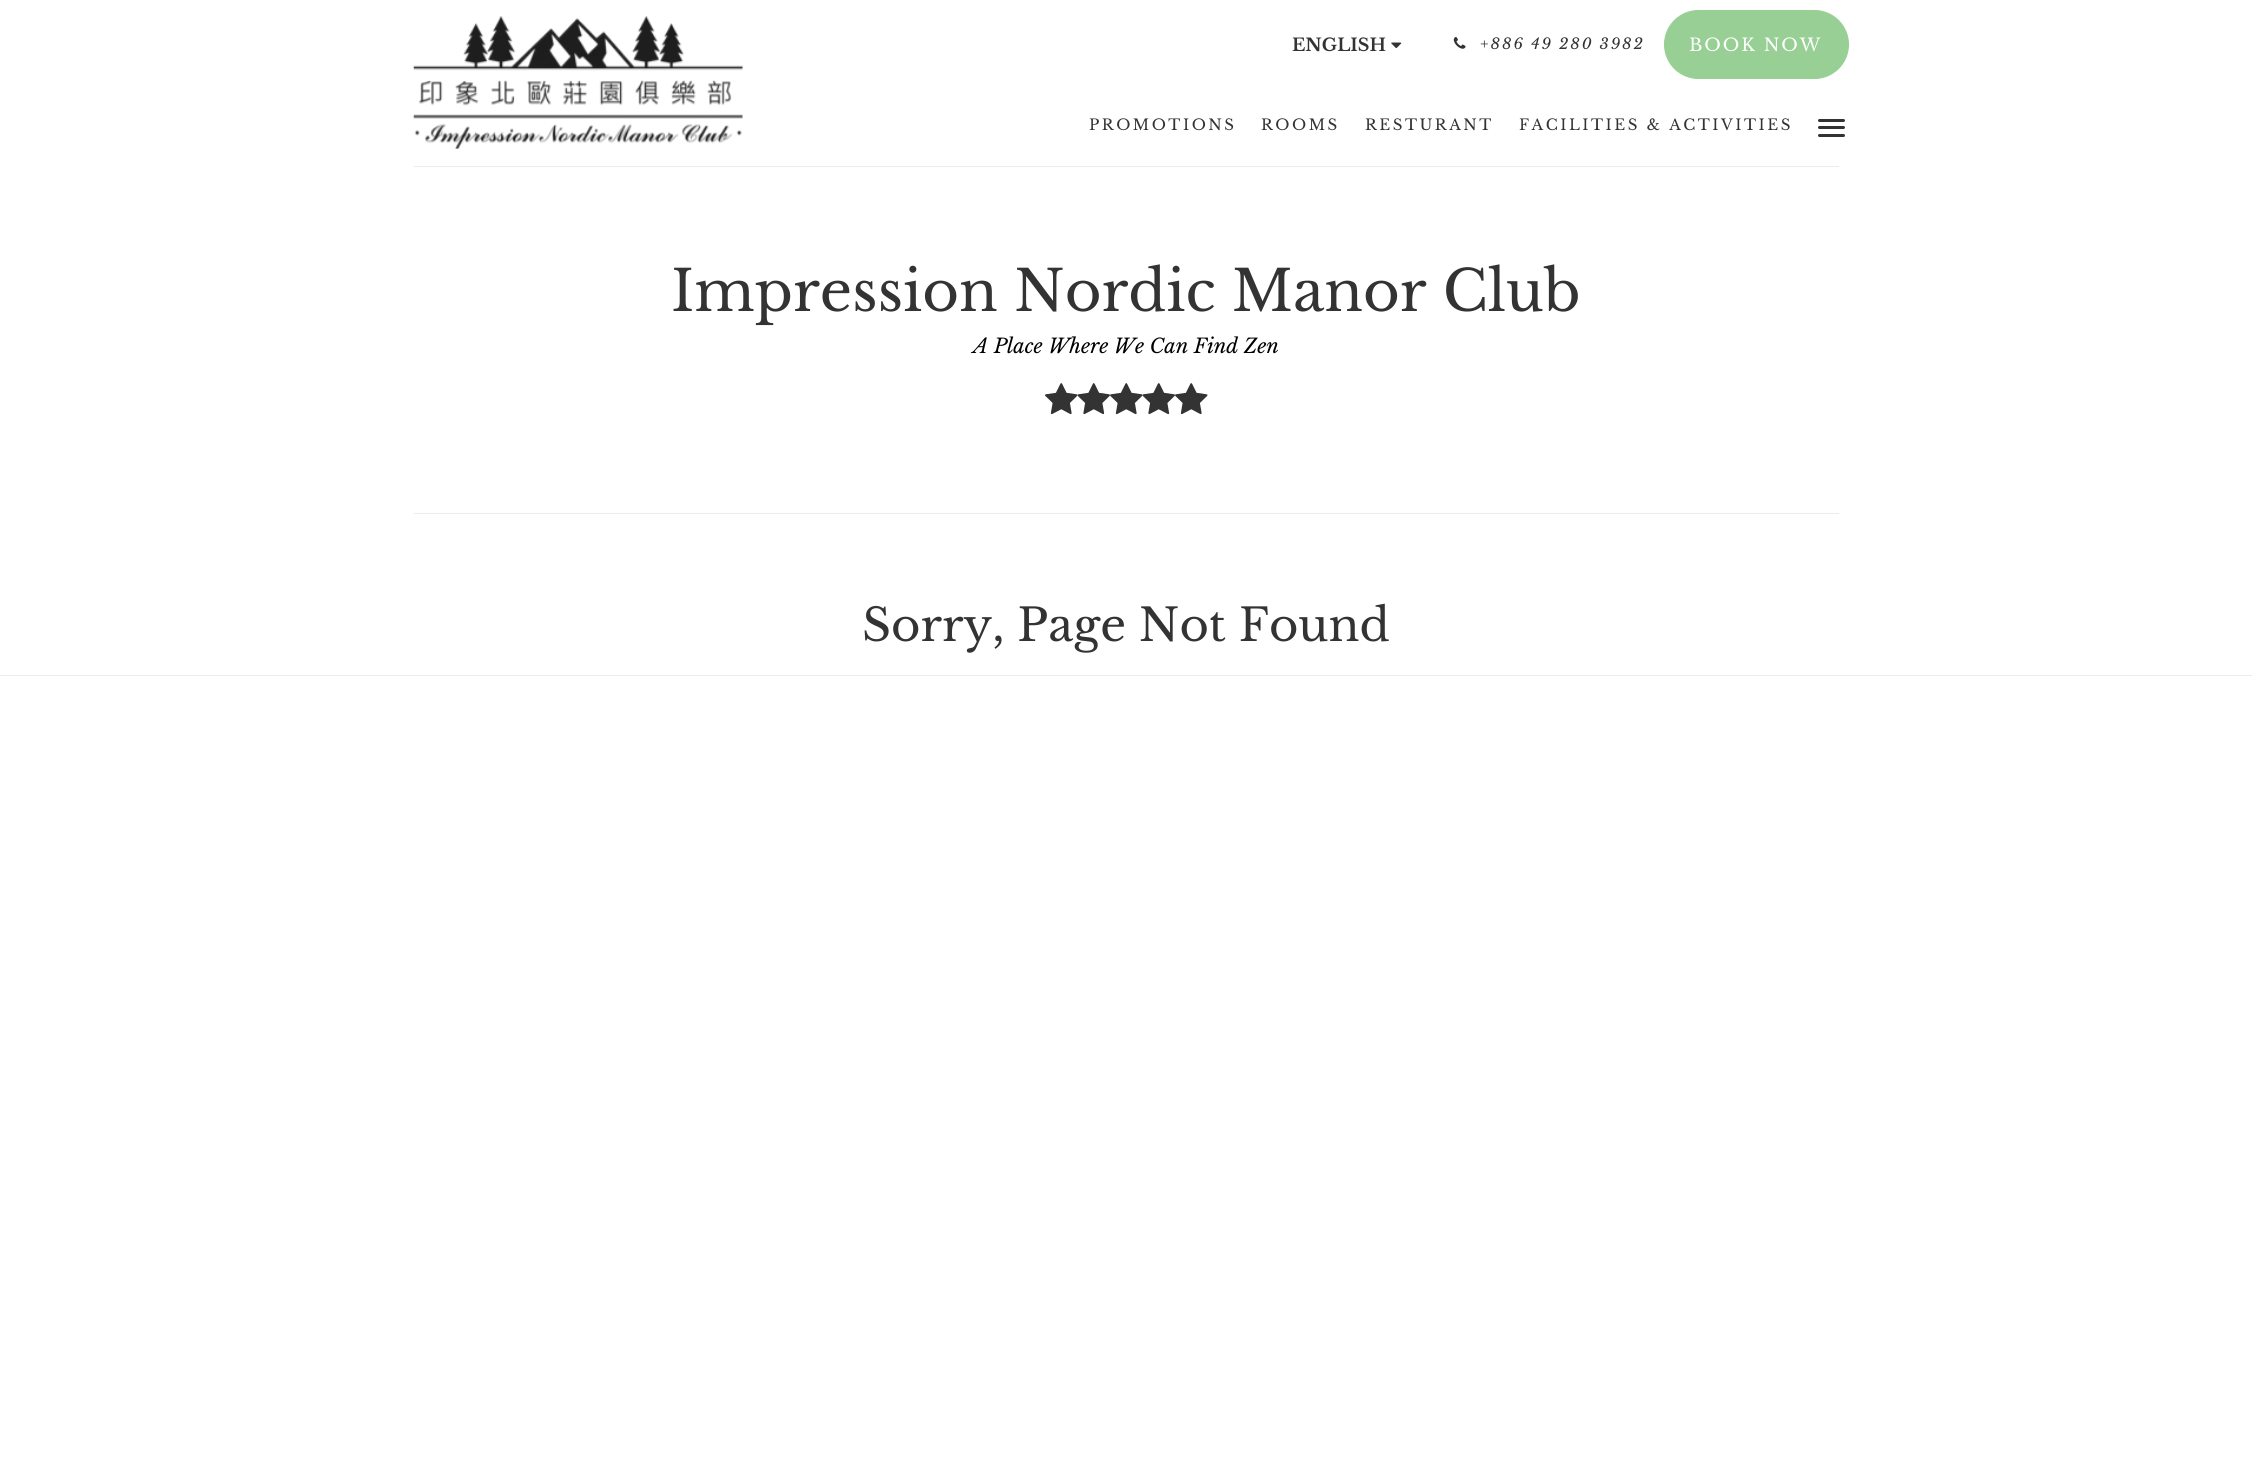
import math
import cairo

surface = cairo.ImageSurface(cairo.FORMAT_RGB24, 2252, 1457)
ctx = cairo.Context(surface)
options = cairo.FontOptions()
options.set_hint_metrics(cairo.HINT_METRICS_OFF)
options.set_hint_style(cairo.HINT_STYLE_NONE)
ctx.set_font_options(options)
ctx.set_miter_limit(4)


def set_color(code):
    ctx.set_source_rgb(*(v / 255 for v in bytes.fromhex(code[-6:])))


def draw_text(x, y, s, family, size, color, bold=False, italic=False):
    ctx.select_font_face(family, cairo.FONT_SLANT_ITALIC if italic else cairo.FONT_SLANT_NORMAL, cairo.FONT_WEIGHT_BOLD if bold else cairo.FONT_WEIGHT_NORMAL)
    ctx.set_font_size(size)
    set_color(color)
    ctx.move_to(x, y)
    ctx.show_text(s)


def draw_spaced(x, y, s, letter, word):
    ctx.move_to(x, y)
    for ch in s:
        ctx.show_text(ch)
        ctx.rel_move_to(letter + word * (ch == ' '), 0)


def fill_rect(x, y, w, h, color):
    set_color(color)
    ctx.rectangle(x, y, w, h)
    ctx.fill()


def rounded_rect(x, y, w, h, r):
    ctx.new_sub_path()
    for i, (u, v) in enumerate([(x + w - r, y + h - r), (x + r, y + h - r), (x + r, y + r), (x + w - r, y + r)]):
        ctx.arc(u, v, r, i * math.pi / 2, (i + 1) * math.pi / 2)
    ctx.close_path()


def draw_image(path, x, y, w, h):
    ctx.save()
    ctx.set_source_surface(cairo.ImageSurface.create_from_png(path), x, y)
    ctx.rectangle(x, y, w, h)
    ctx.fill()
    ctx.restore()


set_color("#ffffff")
ctx.paint()
draw_image("assets/img1.png", 413, 16, 330, 133)
draw_text(1292, 51, "ENGLISH", "Libre Baskerville", 17.5, "#333333", bold=True)
draw_image("assets/img2.png", 1391, 42, 11, 7)
draw_image("assets/img3.png", 1453, 37, 13, 12)
ctx.select_font_face("Libre Baskerville", cairo.FONT_SLANT_ITALIC)
ctx.set_font_size(15)
draw_spaced(1480, 49, "+886 49 280 3982", 1.9, 0)
set_color("#97cf95")
rounded_rect(1664.5, 10.5, 184, 68, 34)
ctx.fill_preserve()
ctx.set_line_width(1)
ctx.stroke()
ctx.select_font_face("Libre Baskerville")
ctx.set_font_size(17.5)
set_color("#ffffff")
draw_spaced(1689, 51, "BOOK NOW", 1.9, 0)
ctx.set_font_size(15)
set_color("#333333")
draw_spaced(1089, 130, "PROMOTIONS", 2.5, 0)
draw_spaced(1261, 130, "ROOMS", 2.5, 0)
draw_spaced(1365, 130, "RESTURANT", 2.5, 0)
draw_spaced(1519, 130, "FACILITIES & ACTIVITIES", 2.5, 0)
rounded_rect(1818, 119, 27, 3, 1.5)
ctx.fill()
rounded_rect(1818, 126, 27, 3, 1.5)
ctx.fill()
rounded_rect(1818, 134, 27, 3, 1.5)
ctx.fill()
fill_rect(414, 166, 1425, 1, "#ececec")
fill_rect(414, 513, 1425, 1, "#ececec")
draw_text(671, 311, "Impression Nordic Manor Club", "Libre Baskerville", 56.25, "#333333")
draw_text(973, 353, "A Place Where We Can Find Zen", "Libre Baskerville", 20, "#000000", italic=True)
draw_image("assets/img4.png", 1045, 383, 33, 32)
draw_image("assets/img5.png", 1077, 383, 33, 32)
draw_image("assets/img4.png", 1110, 383, 33, 32)
draw_image("assets/img5.png", 1142, 383, 33, 32)
draw_image("assets/img4.png", 1175, 383, 33, 32)
fill_rect(0, 675, 2252, 1, "#ececec")
draw_text(862, 641, "Sorry, Page Not Found", "Libre Baskerville", 45, "#333333")
surface.write_to_png("output.png")
